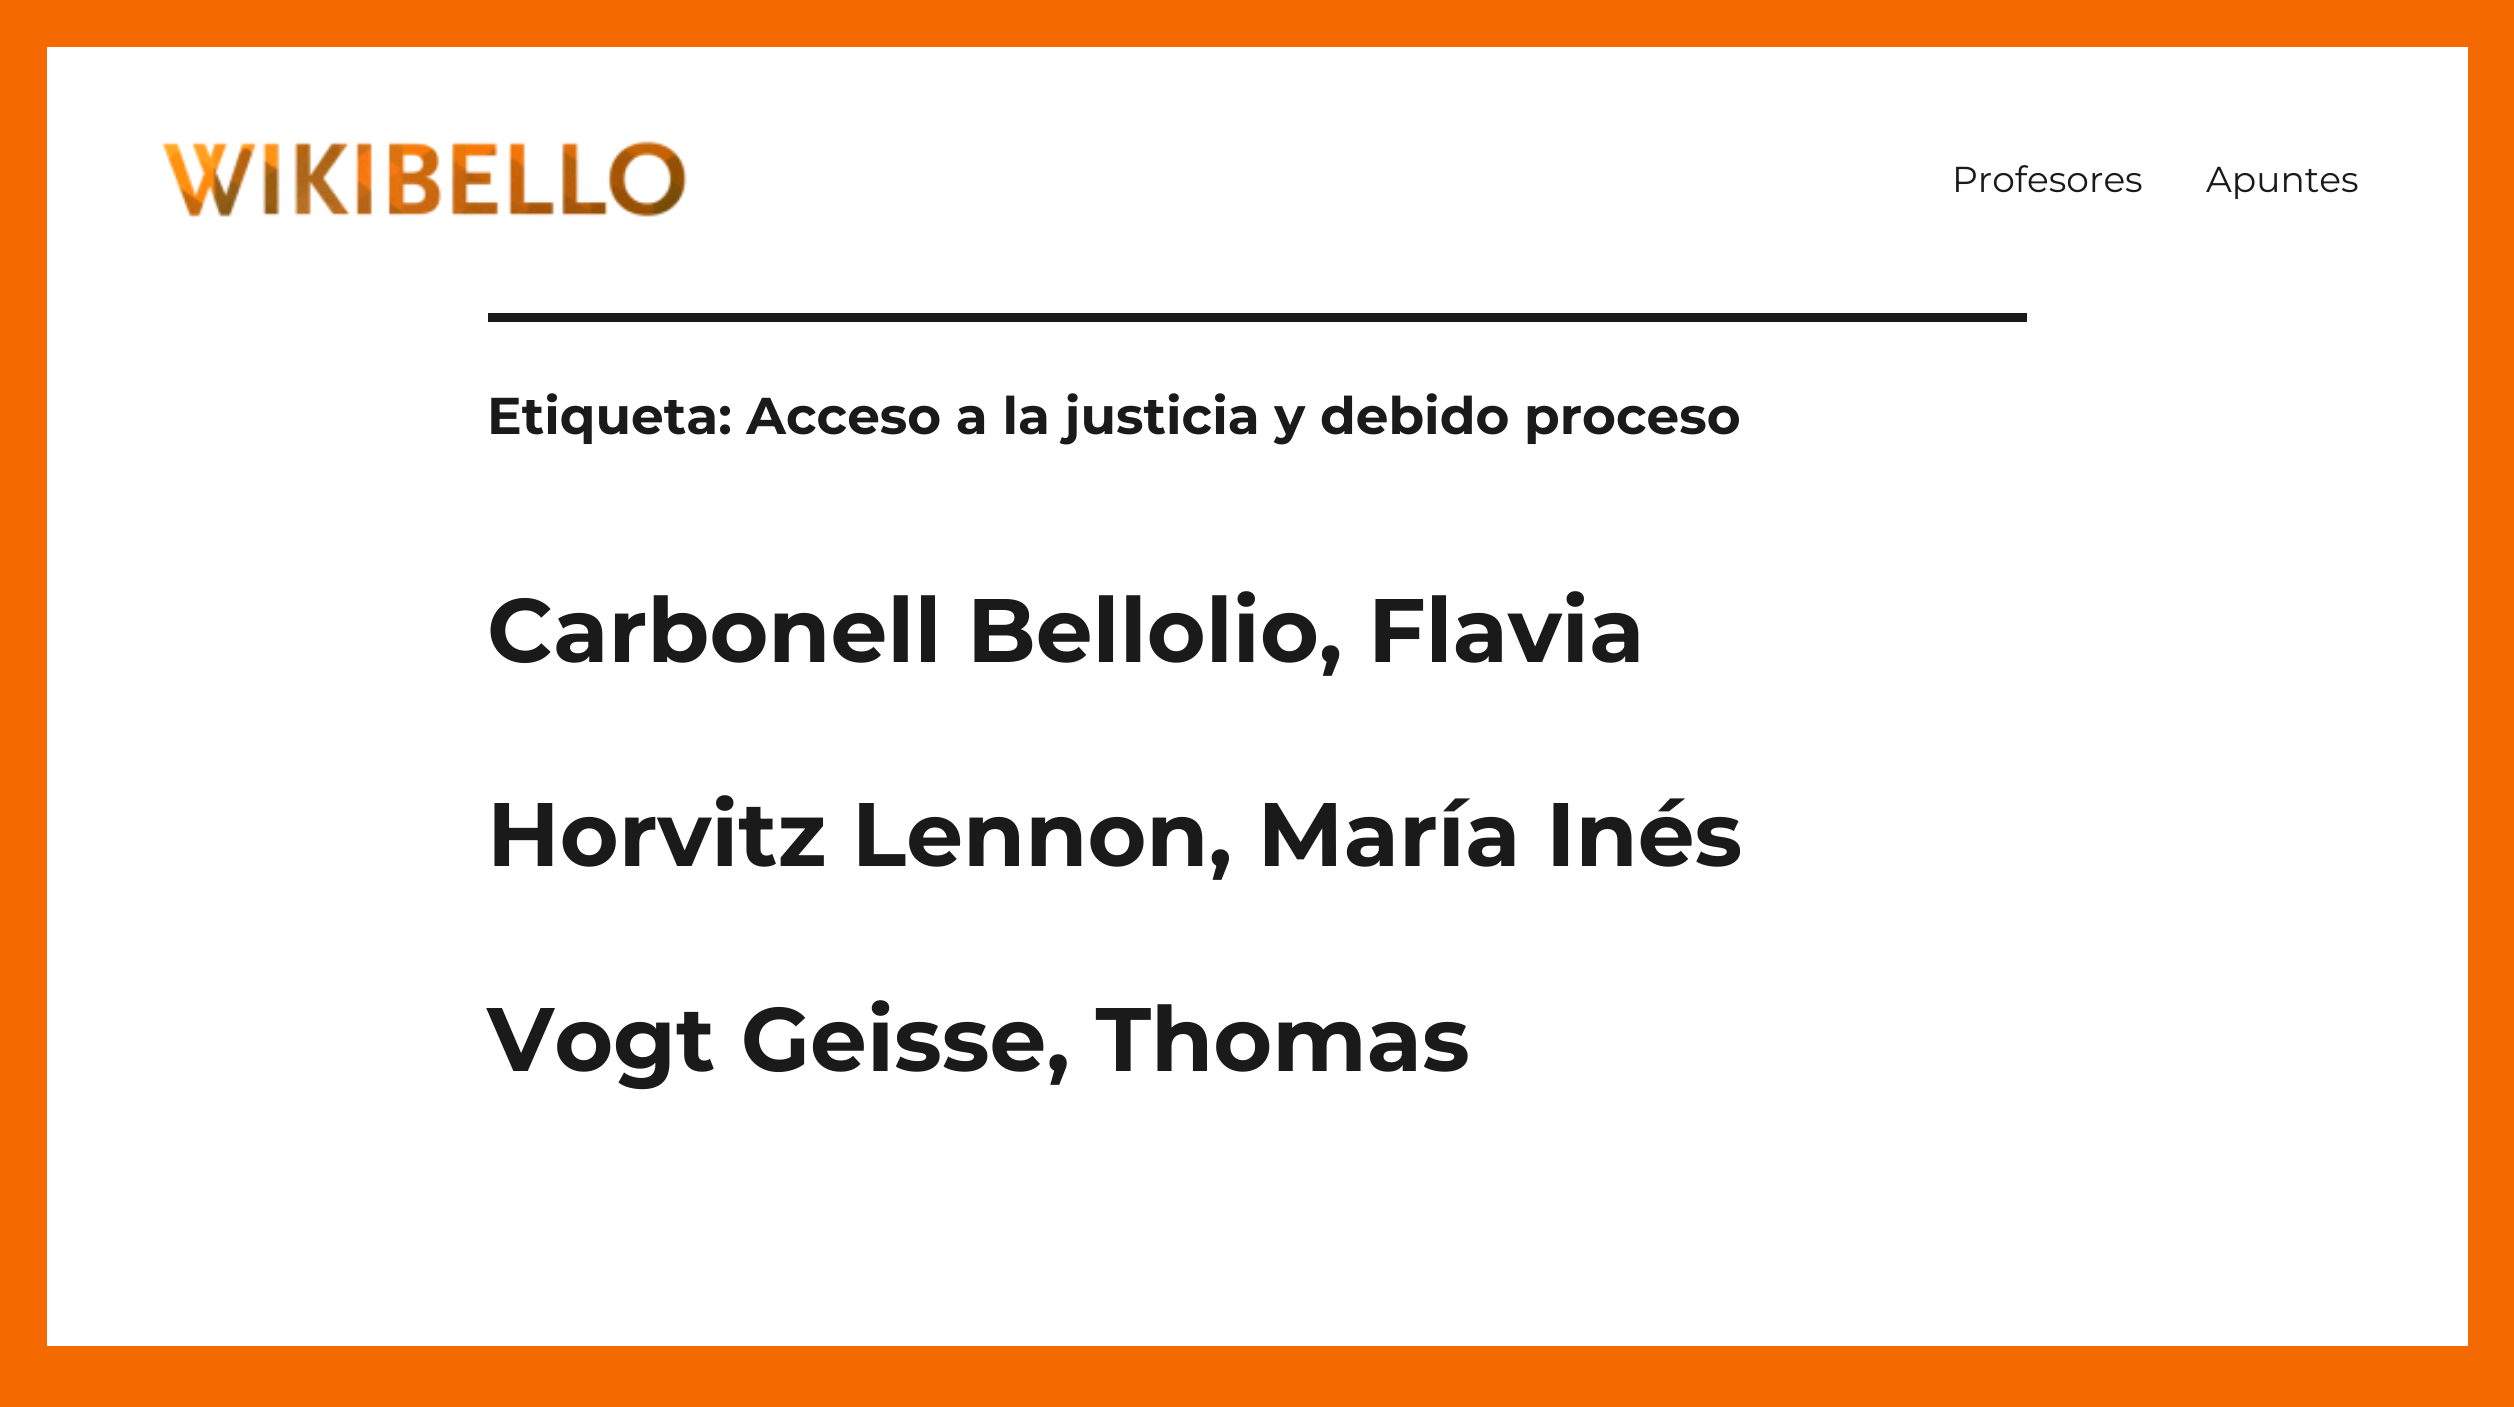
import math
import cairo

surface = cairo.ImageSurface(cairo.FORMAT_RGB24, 2514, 1407)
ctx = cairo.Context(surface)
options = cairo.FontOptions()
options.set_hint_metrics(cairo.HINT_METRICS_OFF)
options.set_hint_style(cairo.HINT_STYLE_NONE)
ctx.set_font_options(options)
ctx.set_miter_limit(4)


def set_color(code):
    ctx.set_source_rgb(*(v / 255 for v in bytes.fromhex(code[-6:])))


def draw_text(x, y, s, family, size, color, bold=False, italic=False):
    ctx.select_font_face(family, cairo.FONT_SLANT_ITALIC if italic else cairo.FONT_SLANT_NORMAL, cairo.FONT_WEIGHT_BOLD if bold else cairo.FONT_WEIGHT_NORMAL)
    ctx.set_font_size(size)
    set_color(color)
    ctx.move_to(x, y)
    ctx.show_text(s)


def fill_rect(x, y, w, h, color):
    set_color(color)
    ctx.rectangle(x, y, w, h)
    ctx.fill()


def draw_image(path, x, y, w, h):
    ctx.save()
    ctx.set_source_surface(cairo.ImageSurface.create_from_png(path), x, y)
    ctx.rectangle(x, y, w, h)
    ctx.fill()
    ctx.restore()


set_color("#f46a00")
ctx.paint()
fill_rect(47, 47, 2421, 1299, "#ffffff")
draw_image("assets/img1.png", 161, 141, 526, 76)
draw_text(1952, 192, "Profesores", "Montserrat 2 Thin", 36, "#1a1a1a")
draw_text(2206, 192, "Apuntes", "Montserrat 2 Thin", 36, "#1a1a1a")
fill_rect(488, 313, 1539, 9, "#1a1a1a")
draw_text(487, 434, "Etiqueta: Acceso a la justicia y debido proceso", "Montserrat Thin", 51.75, "#1a1a1a")
draw_text(487, 662, "Carbonell Bellolio, Flavia", "Montserrat Thin", 90, "#1a1a1a")
draw_text(487, 866, "Horvitz Lennon, María Inés", "Montserrat Thin", 90, "#1a1a1a")
draw_text(487, 1071, "Vogt Geisse, Thomas", "Montserrat Thin", 90, "#1a1a1a")
surface.write_to_png("output.png")
